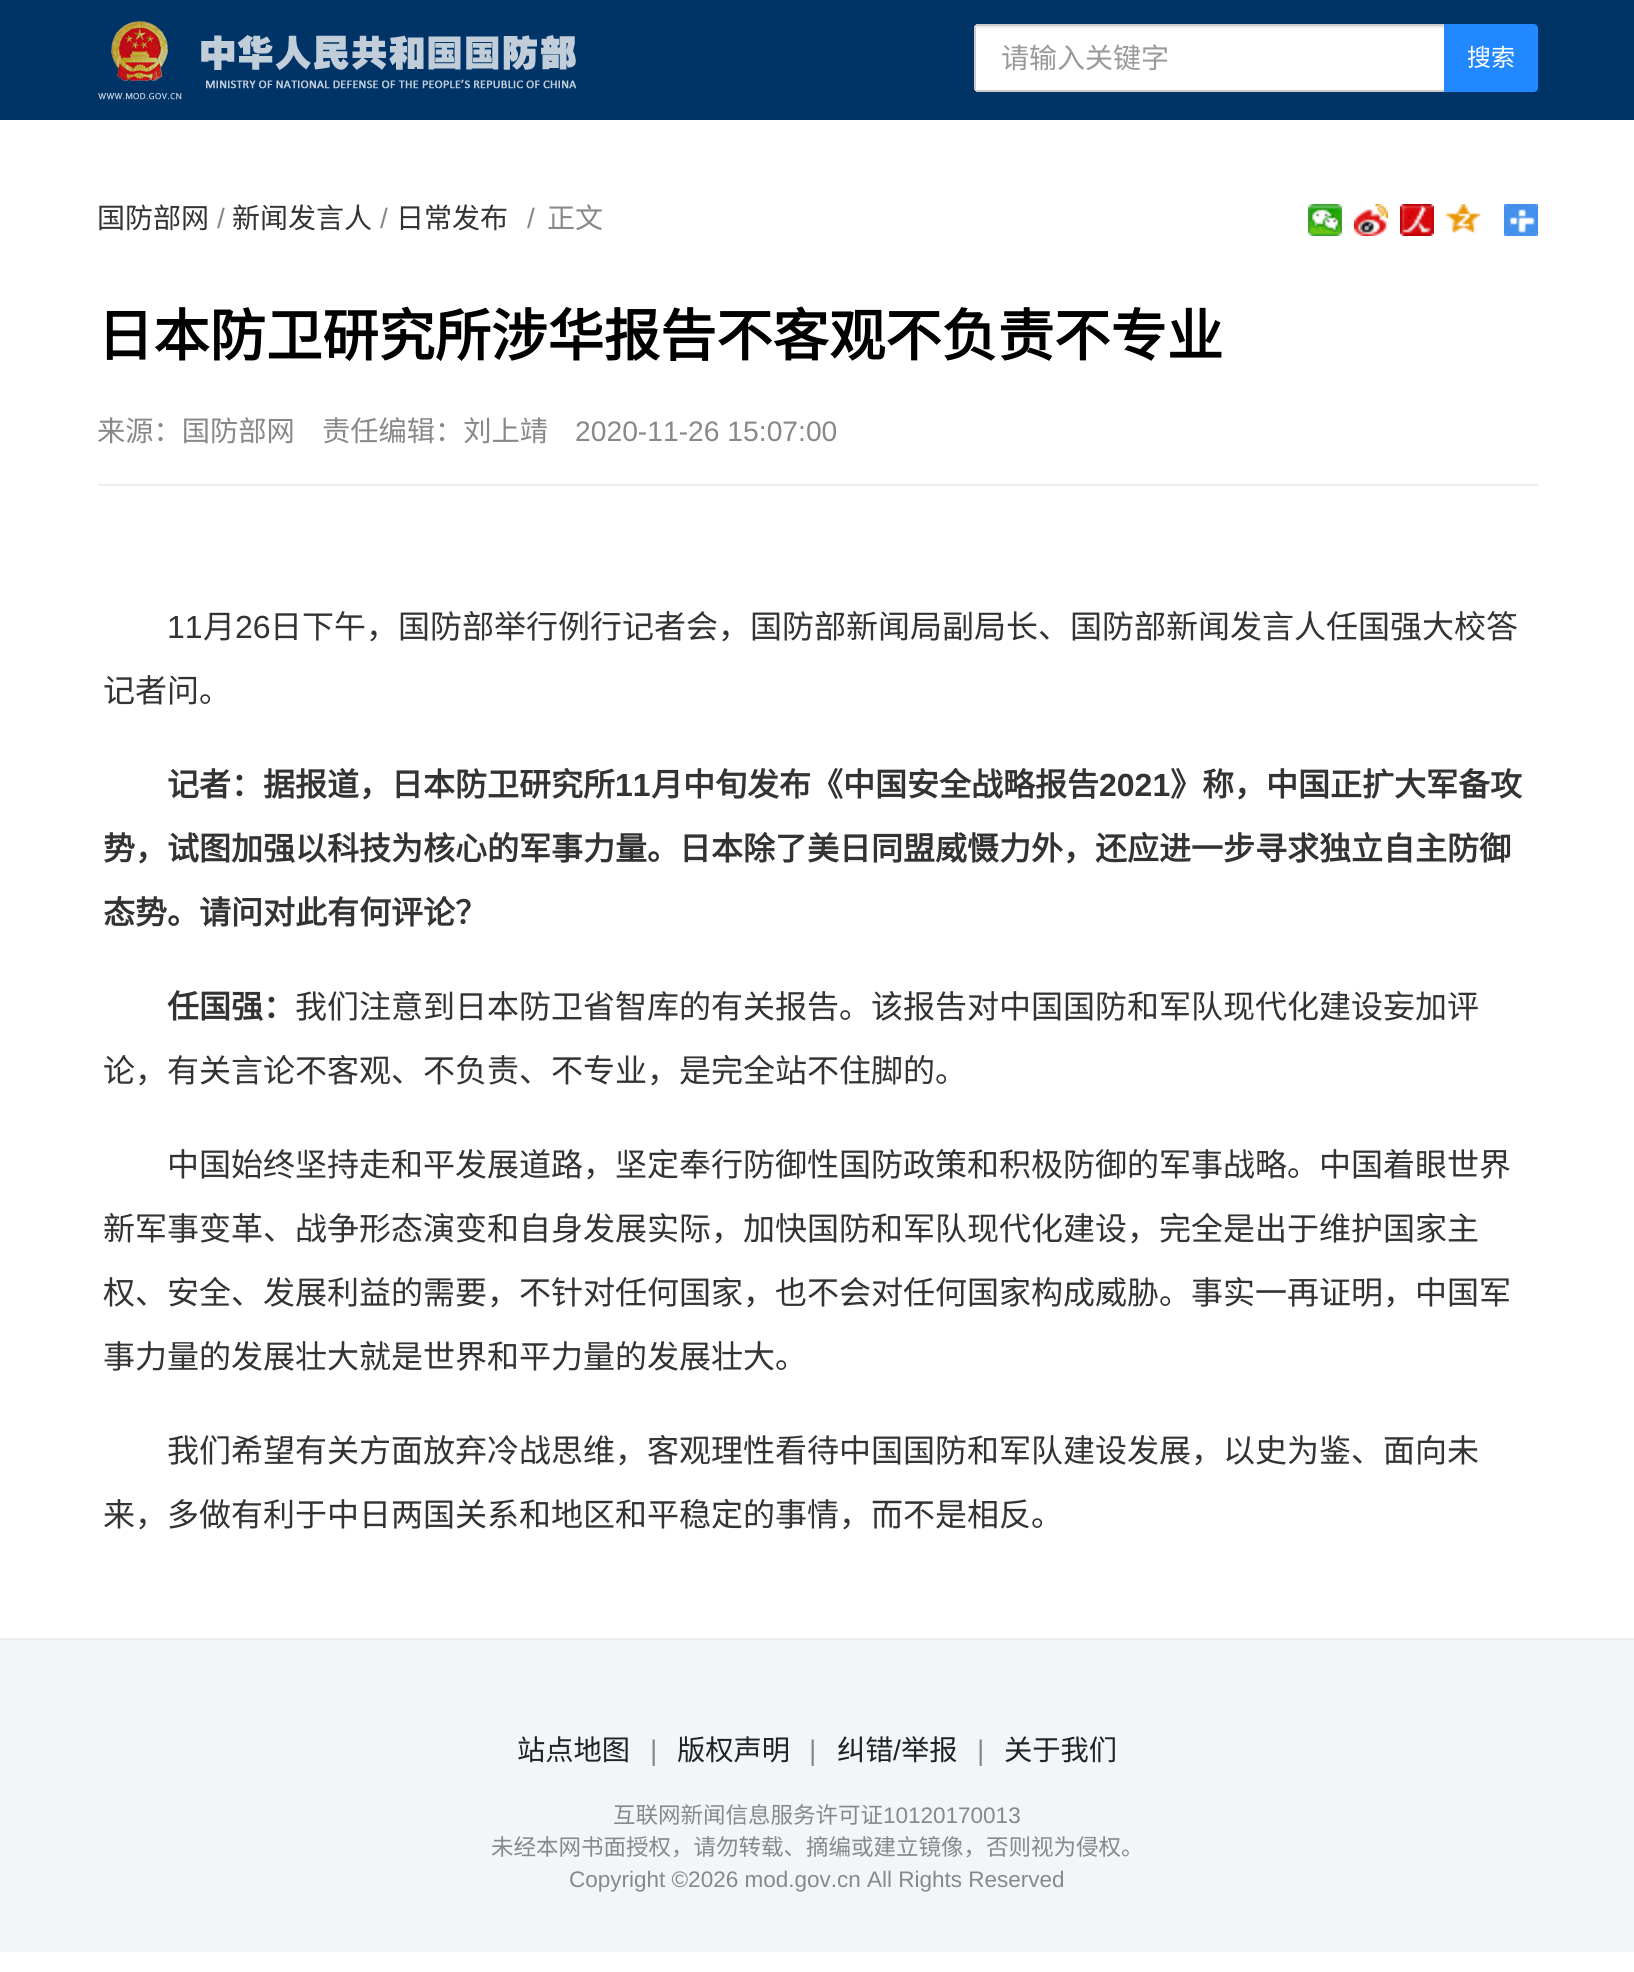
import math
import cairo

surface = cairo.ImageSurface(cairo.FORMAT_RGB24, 1634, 1972)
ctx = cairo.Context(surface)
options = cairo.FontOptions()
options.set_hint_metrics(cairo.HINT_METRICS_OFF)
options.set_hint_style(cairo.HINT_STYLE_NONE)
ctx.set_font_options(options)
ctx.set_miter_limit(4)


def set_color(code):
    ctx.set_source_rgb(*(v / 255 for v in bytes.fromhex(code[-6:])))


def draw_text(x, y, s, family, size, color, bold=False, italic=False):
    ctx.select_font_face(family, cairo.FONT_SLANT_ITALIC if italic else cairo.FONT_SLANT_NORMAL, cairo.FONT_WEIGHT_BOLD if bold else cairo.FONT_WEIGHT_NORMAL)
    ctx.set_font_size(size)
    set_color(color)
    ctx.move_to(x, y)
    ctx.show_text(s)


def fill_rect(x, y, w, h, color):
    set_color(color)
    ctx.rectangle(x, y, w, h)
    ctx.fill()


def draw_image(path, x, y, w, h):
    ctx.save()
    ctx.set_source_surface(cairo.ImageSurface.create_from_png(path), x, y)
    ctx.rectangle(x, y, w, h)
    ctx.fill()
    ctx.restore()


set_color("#ffffff")
ctx.paint()
fill_rect(0, 0, 1634, 120, "#003366")
draw_image("assets/img1.png", 98, 21, 479, 79)
set_color("#ffffff")
ctx.new_path()
ctx.move_to(978, 24)
ctx.line_to(1444, 24)
ctx.line_to(1444, 92)
ctx.line_to(978, 92)
ctx.curve_to(976, 92, 974, 90, 974, 88)
ctx.line_to(974, 28)
ctx.curve_to(974, 26, 976, 24, 978, 24)
ctx.close_path()
ctx.fill()
set_color("#ececec")
ctx.new_path()
ctx.move_to(978, 28)
ctx.line_to(1444, 28)
ctx.line_to(1444, 26)
ctx.line_to(978, 26)
ctx.curve_to(976, 26, 976, 28, 976, 29)
ctx.curve_to(976, 28, 977, 28, 978, 28)
ctx.close_path()
ctx.fill()
fill_rect(976, 24, 468, 2, "#cccccc")
fill_rect(976, 90, 468, 2, "#cccccc")
fill_rect(974, 26, 2, 64, "#cccccc")
draw_text(1001, 68, "请输入关键字", "Noto Sans CJK SC", 28, "#999999")
set_color("#2288ff")
ctx.new_path()
ctx.move_to(1445, 25)
ctx.line_to(1534, 25)
ctx.curve_to(1535.5, 25, 1537, 26.5, 1537, 28)
ctx.line_to(1537, 88)
ctx.curve_to(1537, 89.5, 1535.5, 91, 1534, 91)
ctx.line_to(1445, 91)
ctx.close_path()
ctx.fill_preserve()
ctx.stroke()
draw_text(1467, 66, "搜索", "Noto Sans CJK SC", 24, "#ffffff")
draw_text(97, 228, "国防部网", "Noto Sans CJK SC", 28, "#333333")
draw_text(217, 228, "/", "Liberation Sans", 28, "#888888")
draw_text(232, 228, "新闻发言人", "Noto Sans CJK SC", 28, "#333333")
draw_text(380, 228, "/", "Liberation Sans", 28, "#888888")
draw_text(396, 228, "日常发布", "Noto Sans CJK SC", 28, "#333333")
draw_text(527, 228, "/", "Liberation Sans", 28, "#888888")
draw_text(547, 228, "正文", "Noto Sans CJK SC", 28, "#888888")
draw_image("assets/img2.png", 1308, 204, 34, 32)
draw_image("assets/img3.png", 1354, 204, 34, 32)
draw_image("assets/img4.png", 1400, 204, 34, 32)
draw_image("assets/img5.png", 1446, 204, 34, 29)
draw_image("assets/img6.png", 1504, 204, 34, 32)
fill_rect(98, 484, 1440, 2, "#eeeeee")
draw_text(97, 356, "日本防卫研究所涉华报告不客观不负责不专业", "Noto Sans CJK SC", 56.3, "#000000", bold=True)
draw_text(97, 441, "来源：国防部网", "Noto Sans CJK SC", 28.25, "#888888")
draw_text(322, 441, "责任编辑：刘上靖", "Noto Sans CJK SC", 28.25, "#888888")
draw_text(575, 441, "2020-11-26 15:07:00", "Liberation Sans", 28.25, "#888888")
draw_text(167, 638, "11", "Liberation Sans", 32, "#333333")
draw_text(203, 638, "月", "Noto Sans CJK SC", 32, "#333333")
draw_text(235, 638, "26", "Liberation Sans", 32, "#333333")
draw_text(270, 638, "日下午，国防部举行例行记者会，国防部新闻局副局长、国防部新闻发言人任国强大校答", "Noto Sans CJK SC", 32, "#333333")
draw_text(103, 702, "记者问。", "Noto Sans CJK SC", 32, "#333333")
draw_text(167, 796, "记者：据报道，日本防卫研究所", "Noto Sans CJK SC", 32, "#333333", bold=True)
draw_text(615, 796, "11", "Liberation Sans", 32, "#333333", bold=True)
draw_text(651, 796, "月中旬发布《中国安全战略报告", "Noto Sans CJK SC", 32, "#333333", bold=True)
draw_text(1099, 796, "2021", "Liberation Sans", 32, "#333333", bold=True)
draw_text(1170, 796, "》称，中国正扩大军备攻", "Noto Sans CJK SC", 32, "#333333", bold=True)
draw_text(103, 860, "势，试图加强以科技为核心的军事力量。日本除了美日同盟威慑力外，还应进一步寻求独立自主防御", "Noto Sans CJK SC", 32, "#333333", bold=True)
draw_text(103, 924, "态势。请问对此有何评论？", "Noto Sans CJK SC", 32, "#333333", bold=True)
draw_text(167, 1018, "任国强：", "Noto Sans CJK SC", 32, "#333333", bold=True)
draw_text(295, 1018, "我们注意到日本防卫省智库的有关报告。该报告对中国国防和军队现代化建设妄加评", "Noto Sans CJK SC", 32, "#333333")
draw_text(103, 1082, "论，有关言论不客观、不负责、不专业，是完全站不住脚的。", "Noto Sans CJK SC", 32, "#333333")
draw_text(167, 1176, "中国始终坚持走和平发展道路，坚定奉行防御性国防政策和积极防御的军事战略。中国着眼世界", "Noto Sans CJK SC", 32, "#333333")
draw_text(103, 1240, "新军事变革、战争形态演变和自身发展实际，加快国防和军队现代化建设，完全是出于维护国家主", "Noto Sans CJK SC", 32, "#333333")
draw_text(103, 1304, "权、安全、发展利益的需要，不针对任何国家，也不会对任何国家构成威胁。事实一再证明，中国军", "Noto Sans CJK SC", 32, "#333333")
draw_text(103, 1368, "事力量的发展壮大就是世界和平力量的发展壮大。", "Noto Sans CJK SC", 32, "#333333")
draw_text(167, 1462, "我们希望有关方面放弃冷战思维，客观理性看待中国国防和军队建设发展，以史为鉴、面向未", "Noto Sans CJK SC", 32, "#333333")
draw_text(103, 1526, "来，多做有利于中日两国关系和地区和平稳定的事情，而不是相反。", "Noto Sans CJK SC", 32, "#333333")
fill_rect(0, 1640, 1634, 312, "#f2f6f8")
fill_rect(0, 1638, 1634, 2, "#eeeeee")
draw_text(517, 1760, "站点地图", "Noto Sans CJK SC", 28.25, "#222222")
draw_text(650, 1760, "|", "Liberation Sans", 28.25, "#888888")
draw_text(677, 1760, "版权声明", "Noto Sans CJK SC", 28.25, "#222222")
draw_text(809, 1760, "|", "Liberation Sans", 28.25, "#888888")
draw_text(837, 1760, "纠错", "Noto Sans CJK SC", 28.25, "#222222")
draw_text(893, 1760, "/", "Liberation Sans", 28.25, "#222222")
draw_text(901, 1760, "举报", "Noto Sans CJK SC", 28.25, "#222222")
draw_text(977, 1760, "|", "Liberation Sans", 28.25, "#888888")
draw_text(1004, 1760, "关于我们", "Noto Sans CJK SC", 28.25, "#222222")
draw_text(613, 1823, "互联网新闻信息服务许可证", "Noto Sans CJK SC", 22.5, "#888888")
draw_text(883, 1823, "10120170013", "Liberation Sans", 22.5, "#888888")
draw_text(491, 1855, "未经本网书面授权，请勿转载、摘编或建立镜像，否则视为侵权。", "Noto Sans CJK SC", 22.5, "#888888")
draw_text(569, 1887, "Copyright ©2026 mod.gov.cn All Rights Reserved", "Liberation Sans", 22.5, "#888888")
surface.write_to_png("output.png")
